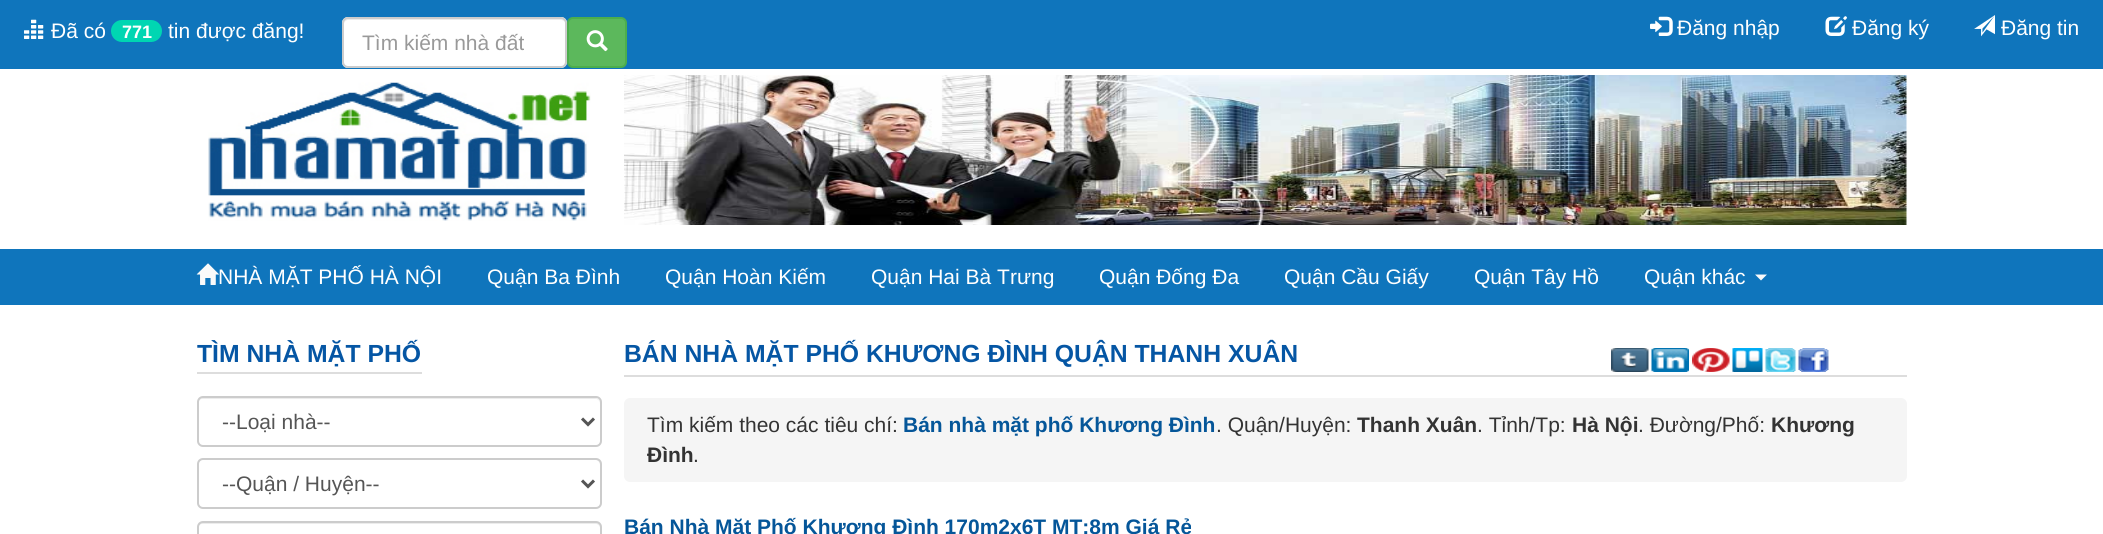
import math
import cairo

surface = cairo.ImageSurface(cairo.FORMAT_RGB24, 2103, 534)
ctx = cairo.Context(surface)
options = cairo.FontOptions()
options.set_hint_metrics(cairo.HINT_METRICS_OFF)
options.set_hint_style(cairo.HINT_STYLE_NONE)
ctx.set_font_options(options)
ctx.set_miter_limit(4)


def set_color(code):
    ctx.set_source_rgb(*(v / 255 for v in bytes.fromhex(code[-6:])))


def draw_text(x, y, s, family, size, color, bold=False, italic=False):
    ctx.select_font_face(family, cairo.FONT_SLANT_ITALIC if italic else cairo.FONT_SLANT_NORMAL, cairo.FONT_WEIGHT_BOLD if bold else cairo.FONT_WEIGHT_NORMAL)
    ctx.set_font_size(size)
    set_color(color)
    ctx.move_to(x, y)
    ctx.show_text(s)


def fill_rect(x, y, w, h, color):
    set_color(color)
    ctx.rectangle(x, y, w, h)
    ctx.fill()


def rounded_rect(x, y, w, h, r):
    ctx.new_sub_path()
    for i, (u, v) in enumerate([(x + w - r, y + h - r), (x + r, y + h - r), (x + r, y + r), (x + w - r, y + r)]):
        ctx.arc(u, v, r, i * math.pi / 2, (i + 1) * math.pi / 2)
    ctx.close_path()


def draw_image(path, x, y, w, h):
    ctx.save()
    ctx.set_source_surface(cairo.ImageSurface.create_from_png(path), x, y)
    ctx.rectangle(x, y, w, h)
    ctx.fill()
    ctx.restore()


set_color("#ffffff")
ctx.paint()
fill_rect(0, 0, 2103, 69, "#0f75bc")
draw_image("assets/img1.png", 24, 19, 20, 20)
draw_text(51, 38, "Đã có", "Liberation Sans", 21, "#ffffff")
set_color("#00d6b2")
rounded_rect(111, 20, 51, 22, 11)
ctx.fill()
draw_text(122, 38, "771", "Liberation Sans", 18, "#ffffff", bold=True)
draw_text(168, 38, "tin được đăng!", "Liberation Sans", 21, "#ffffff")
rounded_rect(342, 17, 225, 51, 6)
ctx.fill()
set_color("#ececec")
ctx.new_path()
ctx.move_to(348, 20)
ctx.line_to(561, 20)
ctx.curve_to(563, 20, 566, 22, 566, 24)
ctx.line_to(566, 23)
ctx.curve_to(566, 20, 564, 18, 561, 18)
ctx.line_to(349, 18)
ctx.curve_to(346, 18, 344, 20, 344, 23)
ctx.line_to(344, 24)
ctx.curve_to(344, 22, 346, 20, 348, 20)
ctx.close_path()
ctx.fill()
rounded_rect(343, 18, 223, 49, 5)
set_color("#cccccc")
ctx.stroke()
draw_text(362, 50, "Tìm kiếm nhà đất", "Liberation Sans", 21, "#999999")
set_color("#5cb85c")
rounded_rect(568, 18, 58, 49, 5)
ctx.fill_preserve()
set_color("#4cae4c")
ctx.stroke()
draw_image("assets/img2.png", 586, 30, 22, 22)
draw_image("assets/img3.png", 1650, 16, 23, 20)
draw_text(1677, 35, "Đăng nhập", "Liberation Sans", 21, "#ffffff")
draw_image("assets/img4.png", 1825, 16, 22, 20)
draw_text(1852, 35, "Đăng ký", "Liberation Sans", 21, "#ffffff")
draw_image("assets/img5.png", 1974, 15, 21, 22)
draw_text(2001, 35, "Đăng tin", "Liberation Sans", 21, "#ffffff")
draw_image("assets/img6.png", 208, 82, 383, 139)
draw_image("assets/img7.png", 624, 75, 1283, 150)
fill_rect(0, 249, 2103, 56, "#0f75bc")
draw_image("assets/img8.png", 196, 263, 23, 22)
draw_text(218, 284, "NHÀ MẶT PHỐ HÀ NỘI", "Liberation Sans", 21, "#ffffff")
draw_text(487, 284, "Quận Ba Đình", "Liberation Sans", 21, "#ffffff")
draw_text(665, 284, "Quận Hoàn Kiếm", "Liberation Sans", 21, "#ffffff")
draw_text(871, 284, "Quận Hai Bà Trưng", "Liberation Sans", 21, "#ffffff")
draw_text(1099, 284, "Quận Đống Đa", "Liberation Sans", 21, "#ffffff")
draw_text(1284, 284, "Quận Cầu Giấy", "Liberation Sans", 21, "#ffffff")
draw_text(1474, 284, "Quận Tây Hồ", "Liberation Sans", 21, "#ffffff")
draw_text(1644, 284, "Quận khác", "Liberation Sans", 21, "#ffffff")
set_color("#fafafa")
ctx.new_path()
ctx.move_to(1755, 274.5)
ctx.line_to(1767, 274.5)
ctx.line_to(1761, 280.5)
ctx.close_path()
ctx.fill()
fill_rect(197, 372, 225, 2, "#dddddd")
draw_text(197, 362, "TÌM NHÀ MẶT PHỐ", "Liberation Sans", 24.75, "#0556a4", bold=True)
set_color("#ececec")
ctx.new_path()
ctx.move_to(202, 399)
ctx.line_to(596, 399)
ctx.curve_to(598, 399, 600, 401, 600, 404)
ctx.line_to(600, 403)
ctx.curve_to(600, 400, 598, 398, 595, 398)
ctx.line_to(203, 398)
ctx.curve_to(200, 398, 198, 400, 198, 403)
ctx.line_to(198, 404)
ctx.curve_to(198, 401, 200, 399, 202, 399)
ctx.close_path()
ctx.fill()
rounded_rect(198, 397, 403, 49, 5)
set_color("#cccccc")
ctx.stroke()
ctx.new_path()
ctx.move_to(582, 418.5)
ctx.line_to(588, 424.5)
ctx.line_to(594, 418.5)
set_color("#555555")
ctx.set_line_width(3)
ctx.stroke()
draw_text(222, 429, "--Loại nhà--", "Liberation Sans", 21, "#555555")
set_color("#ececec")
ctx.new_path()
ctx.move_to(202, 460)
ctx.line_to(596, 460)
ctx.curve_to(598, 460, 600, 463, 600, 465)
ctx.line_to(600, 464)
ctx.curve_to(600, 461, 598, 459, 595, 459)
ctx.line_to(203, 459)
ctx.curve_to(200, 459, 198, 461, 198, 464)
ctx.line_to(198, 465)
ctx.curve_to(198, 463, 200, 460, 202, 460)
ctx.close_path()
ctx.fill()
rounded_rect(198, 459, 403, 49, 5)
set_color("#cccccc")
ctx.set_line_width(2)
ctx.stroke()
ctx.new_path()
ctx.move_to(582, 480.5)
ctx.line_to(588, 486.5)
ctx.line_to(594, 480.5)
set_color("#555555")
ctx.set_line_width(3)
ctx.stroke()
draw_text(222, 491, "--Quận / Huyện--", "Liberation Sans", 21, "#555555")
set_color("#ececec")
ctx.new_path()
ctx.move_to(202, 524)
ctx.line_to(596, 524)
ctx.curve_to(598, 524, 600, 526, 600, 528)
ctx.line_to(600, 527)
ctx.curve_to(600, 524, 598, 522, 595, 522)
ctx.line_to(203, 522)
ctx.curve_to(200, 522, 198, 524, 198, 527)
ctx.line_to(198, 528)
ctx.curve_to(198, 526, 200, 524, 202, 524)
ctx.close_path()
ctx.fill()
rounded_rect(198, 522, 403, 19, 5)
set_color("#cccccc")
ctx.set_line_width(2)
ctx.stroke()
fill_rect(624, 375, 1283, 2, "#dddddd")
draw_text(624, 362, "BÁN NHÀ MẶT PHỐ KHƯƠNG ĐÌNH QUẬN THANH XUÂN", "Liberation Sans", 24.75, "#0556a4", bold=True)
draw_image("assets/img9.png", 1611, 348, 38, 24)
draw_image("assets/img10.png", 1651, 348, 38, 24)
draw_image("assets/img11.png", 1692, 348, 38, 24)
draw_image("assets/img12.png", 1732, 348, 31, 24)
draw_image("assets/img13.png", 1765, 348, 31, 24)
draw_image("assets/img14.png", 1798, 348, 31, 24)
set_color("#f5f5f5")
rounded_rect(624, 398, 1283, 84, 6)
ctx.fill()
draw_text(647, 432, "Tìm kiếm theo các tiêu chí:", "Liberation Sans", 21, "#333333")
draw_text(903, 432, "Bán nhà mặt phố Khương Đình", "Liberation Sans", 21, "#055699", bold=True)
draw_text(1216, 432, ". Quận/Huyện:", "Liberation Sans", 21, "#333333")
draw_text(1357, 432, "Thanh Xuân", "Liberation Sans", 21, "#333333", bold=True)
draw_text(1477, 432, ". Tỉnh/Tp:", "Liberation Sans", 21, "#333333")
draw_text(1572, 432, "Hà Nội", "Liberation Sans", 21, "#333333", bold=True)
draw_text(1638, 432, ". Đường/Phố:", "Liberation Sans", 21, "#333333")
draw_text(1771, 432, "Khương", "Liberation Sans", 21, "#333333", bold=True)
draw_text(647, 462, "Đình", "Liberation Sans", 21, "#333333", bold=True)
draw_text(693, 462, ".", "Liberation Sans", 21, "#333333")
draw_text(624, 534, "Bán Nhà Mặt Phố Khương Đình 170m2x6T MT:8m Giá Rẻ", "Liberation Sans", 21, "#055699", bold=True)
surface.write_to_png("output.png")
